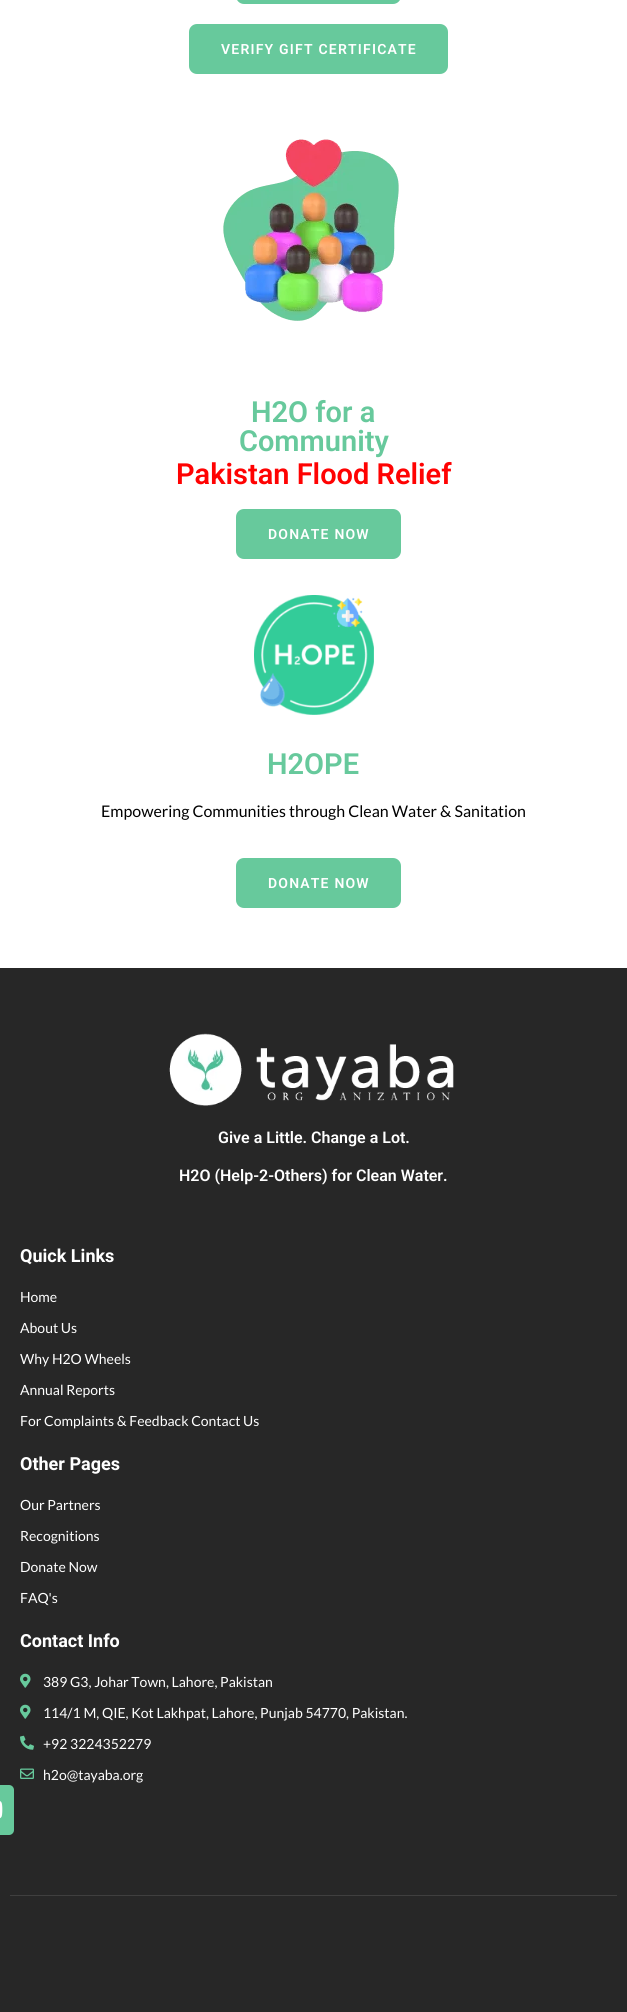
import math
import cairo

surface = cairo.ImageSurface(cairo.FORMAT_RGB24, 627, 2012)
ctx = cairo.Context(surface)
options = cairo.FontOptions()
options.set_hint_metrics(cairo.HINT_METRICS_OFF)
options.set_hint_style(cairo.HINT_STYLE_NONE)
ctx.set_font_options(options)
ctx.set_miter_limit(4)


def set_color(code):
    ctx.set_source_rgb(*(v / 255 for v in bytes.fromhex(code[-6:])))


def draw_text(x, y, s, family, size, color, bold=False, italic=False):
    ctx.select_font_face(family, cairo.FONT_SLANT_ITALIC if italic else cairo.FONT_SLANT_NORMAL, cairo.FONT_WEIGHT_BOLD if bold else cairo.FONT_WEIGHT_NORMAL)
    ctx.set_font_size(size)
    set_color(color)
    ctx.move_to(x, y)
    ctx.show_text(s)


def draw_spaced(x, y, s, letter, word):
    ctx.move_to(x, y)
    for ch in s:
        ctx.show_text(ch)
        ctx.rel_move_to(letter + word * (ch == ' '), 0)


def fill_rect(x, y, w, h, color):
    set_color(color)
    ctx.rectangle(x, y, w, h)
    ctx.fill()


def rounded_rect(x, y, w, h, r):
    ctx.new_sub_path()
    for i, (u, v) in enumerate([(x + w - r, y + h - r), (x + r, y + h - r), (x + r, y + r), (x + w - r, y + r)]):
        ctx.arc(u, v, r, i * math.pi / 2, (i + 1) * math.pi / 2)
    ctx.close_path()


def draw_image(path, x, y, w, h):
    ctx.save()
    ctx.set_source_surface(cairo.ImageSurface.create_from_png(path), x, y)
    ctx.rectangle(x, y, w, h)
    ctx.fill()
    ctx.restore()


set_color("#ffffff")
ctx.paint()
set_color("#67c99c")
rounded_rect(236, -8, 165, 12, 8)
ctx.fill()
rounded_rect(189, 24, 259, 50, 8)
ctx.fill()
ctx.select_font_face("Roboto SemiBold")
ctx.set_font_size(14)
set_color("#ffffff")
draw_spaced(221, 54, "VERIFY GIFT CERTIFICATE", 1.2, 0)
draw_image("assets/img1.png", 223, 139, 176, 182)
draw_text(251, 422, "H2O for a", "Roboto SemiBold", 29, "#67c99c")
draw_text(239, 451, "Community", "Roboto SemiBold", 29, "#67c99c")
draw_text(176, 484, "Pakistan Flood Relief", "Roboto SemiBold", 29, "#ff0202")
set_color("#67c99c")
rounded_rect(236, 509, 165, 50, 8)
ctx.fill()
ctx.set_font_size(14)
set_color("#ffffff")
draw_spaced(268, 539, "DONATE NOW", 1.2, 0)
draw_image("assets/img2.png", 254, 595, 120, 120)
draw_text(267, 774, "H2OPE", "Roboto SemiBold", 29, "#67c99c")
draw_text(101, 817, "Empowering Communities through Clean Water & Sanitation", "Lato", 16, "#000000")
set_color("#67c99c")
rounded_rect(236, 858, 165, 50, 8)
ctx.fill()
ctx.select_font_face("Roboto SemiBold")
ctx.set_font_size(14)
set_color("#ffffff")
draw_spaced(268, 888, "DONATE NOW", 1.2, 0)
fill_rect(0, 968, 627, 1044, "#272727")
draw_image("assets/img3.png", 169, 1033, 285, 73)
draw_text(218, 1143, "Give a Little. Change a Lot.", "Roboto SemiBold", 16, "#ffffff")
draw_text(179, 1181, "H2O (Help-2-Others) for Clean Water.", "Roboto SemiBold", 16, "#ffffff")
draw_text(20, 1262, "Quick Links", "Heebo", 18, "#ffffff", bold=True)
draw_text(20, 1302, "Home", "Lato", 14, "#ffffff")
draw_text(20, 1333, "About Us", "Lato", 14, "#ffffff")
draw_text(20, 1364, "Why H2O Wheels", "Lato", 14, "#ffffff")
draw_text(20, 1395, "Annual Reports", "Lato", 14, "#ffffff")
draw_text(20, 1426, "For Complaints & Feedback Contact Us", "Lato", 14, "#ffffff")
draw_text(20, 1470, "Other Pages", "Heebo", 18, "#ffffff", bold=True)
draw_text(20, 1510, "Our Partners", "Lato", 14, "#ffffff")
draw_text(20, 1541, "Recognitions", "Lato", 14, "#ffffff")
draw_text(20, 1572, "Donate Now", "Lato", 14, "#ffffff")
draw_text(20, 1603, "FAQ's", "Lato", 14, "#ffffff")
draw_text(20, 1647, "Contact Info", "Heebo", 18, "#ffffff", bold=True)
draw_image("assets/img4.png", 20, 1673, 11, 15)
draw_text(43, 1687, "389 G3, Johar Town, Lahore, Pakistan", "Lato", 14, "#ffffff")
draw_image("assets/img4.png", 20, 1704, 11, 15)
draw_text(43, 1718, "114/1 M, QIE, Kot Lakhpat, Lahore, Punjab 54770, Pakistan.", "Lato", 14, "#ffffff")
draw_image("assets/img5.png", 20, 1735, 14, 15)
draw_text(43, 1749, "+92 3224352279", "Lato", 14, "#ffffff")
draw_image("assets/img6.png", 20, 1768, 14, 11)
draw_text(43, 1780, "h2o@tayaba.org", "Lato", 14, "#ffffff")
set_color("#67c99c")
rounded_rect(-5, 1785, 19, 50, 5)
ctx.fill()
draw_image("assets/img7.png", 0, 1801, 3, 18)
fill_rect(10, 1895, 607, 1, "#3f3f3f")
surface.write_to_png("output.png")
